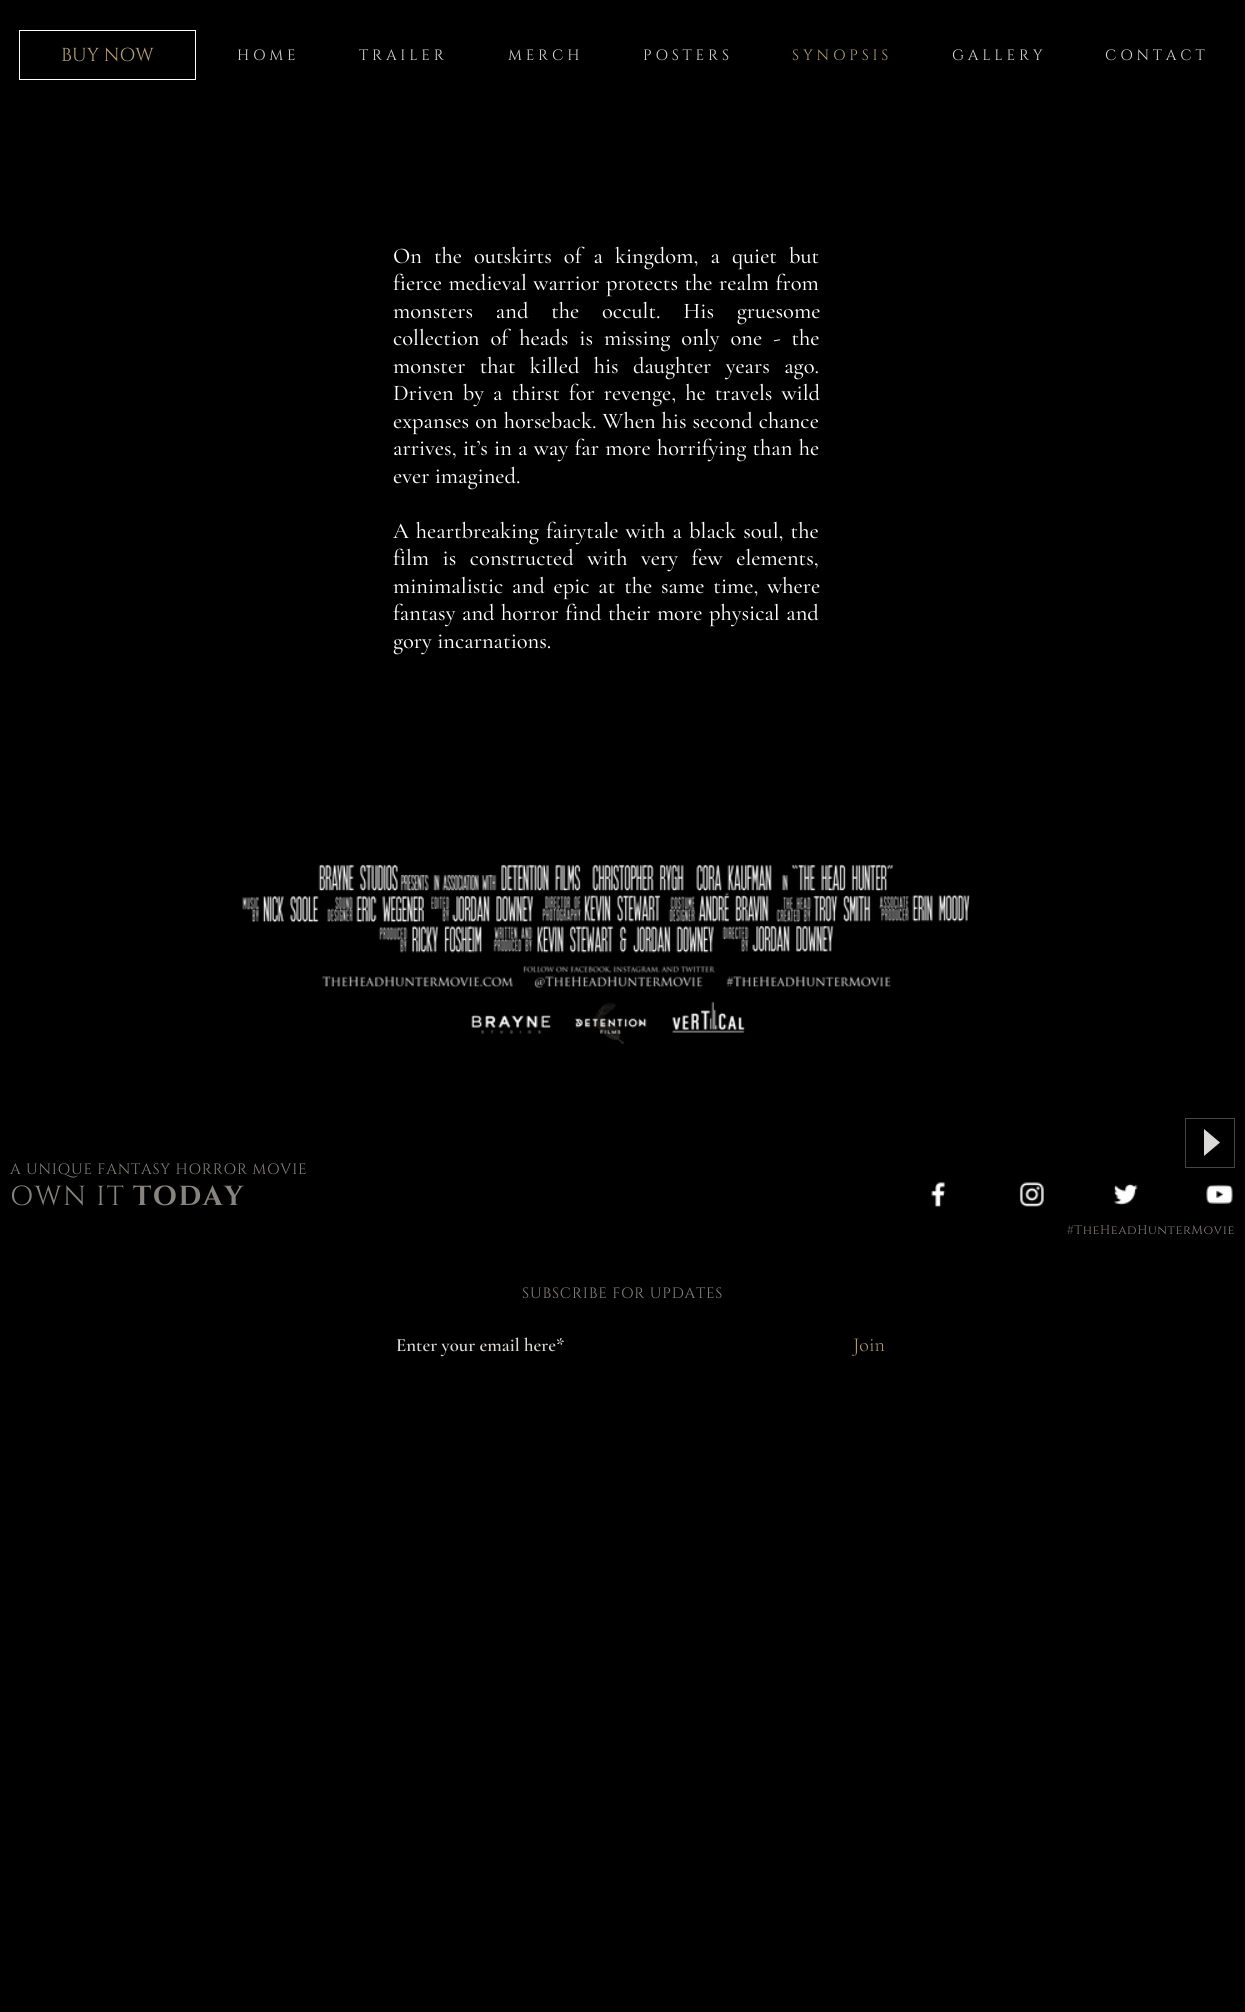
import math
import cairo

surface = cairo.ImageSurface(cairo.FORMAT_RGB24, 1245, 2012)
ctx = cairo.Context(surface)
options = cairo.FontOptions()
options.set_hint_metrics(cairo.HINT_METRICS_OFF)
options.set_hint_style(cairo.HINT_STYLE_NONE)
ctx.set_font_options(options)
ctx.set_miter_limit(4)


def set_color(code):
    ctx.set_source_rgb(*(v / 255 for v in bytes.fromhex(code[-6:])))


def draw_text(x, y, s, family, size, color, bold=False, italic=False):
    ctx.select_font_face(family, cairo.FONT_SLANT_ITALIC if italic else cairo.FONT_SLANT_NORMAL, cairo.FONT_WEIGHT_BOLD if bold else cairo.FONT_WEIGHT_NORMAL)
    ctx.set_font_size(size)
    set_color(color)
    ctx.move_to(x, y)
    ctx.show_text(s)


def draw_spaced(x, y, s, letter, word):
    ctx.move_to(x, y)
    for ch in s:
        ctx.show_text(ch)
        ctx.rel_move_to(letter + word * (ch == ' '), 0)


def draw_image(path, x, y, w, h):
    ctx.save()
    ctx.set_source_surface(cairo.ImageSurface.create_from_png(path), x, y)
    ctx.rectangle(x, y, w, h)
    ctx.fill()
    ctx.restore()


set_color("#000000")
ctx.paint()
ctx.rectangle(19.5, 30.5, 176, 49)
set_color("#ffffff")
ctx.set_line_width(1)
ctx.stroke()
draw_text(61, 61, "BUY NOW", "Cinzel", 18.75, "#b39f79")
draw_text(237, 60, "H O M E", "Cinzel", 15, "#dbd9d7")
draw_text(359, 60, "T R A I L E R", "Cinzel", 15, "#dbd9d7")
draw_text(508, 60, "M E R C H", "Cinzel", 15, "#dbd9d7")
draw_text(643, 60, "P O S T E R S", "Cinzel", 15, "#dbd9d7")
draw_text(792, 60, "S Y N O P S I S", "Cinzel", 15, "#b39f79")
draw_text(952, 60, "G A L L E R Y", "Cinzel", 15, "#dbd9d7")
draw_text(1105, 60, "C O N T A C T", "Cinzel", 15, "#dbd9d7")
ctx.select_font_face("Cormorant Garamond Medium")
ctx.set_font_size(22.5)
set_color("#ffffff")
draw_spaced(393, 263, "On the outskirts of a kingdom, a quiet but", 0, 6.75)
draw_spaced(393, 290, "fierce medieval warrior protects the realm from", 0, 1.25)
draw_spaced(393, 318, "monsters and the occult. His gruesome", 0, 17.5)
draw_spaced(393, 345, "collection of heads is missing only one - the", 0, 5.75)
draw_spaced(393, 373, "monster that killed his daughter years ago.", 0, 9)
draw_spaced(393, 400, "Driven by a thirst for revenge, he travels wild", 0, 3.75)
draw_spaced(393, 428, "expanses on horseback. When his second chance", 0, 0.75)
draw_spaced(393, 455, "arrives, it’s in a way far more horrifying than he", 0, 1)
draw_text(393, 483, "ever imagined.", "Cormorant Garamond Medium", 22.5, "#ffffff")
draw_spaced(393, 538, "A heartbreaking fairytale with a black soul, the", 0, 1.75)
draw_spaced(393, 565, "film is constructed with very few elements,", 0, 8.25)
draw_spaced(393, 593, "minimalistic and epic at the same time, where", 0, 3.5)
draw_spaced(393, 620, "fantasy and horror find their more physical and", 0, 1.25)
draw_text(393, 648, "gory incarnations.", "Cormorant Garamond Medium", 22.5, "#ffffff")
draw_image("assets/img1.png", 242, 864, 728, 180)
ctx.rectangle(1185.5, 1118.5, 49, 49)
set_color("#454545")
ctx.stroke()
set_color("#dbd9d7")
ctx.new_path()
ctx.move_to(1204, 1156)
ctx.line_to(1204, 1129)
ctx.line_to(1220, 1142.5)
ctx.close_path()
ctx.fill()
ctx.select_font_face("Cinzel")
ctx.set_font_size(15)
set_color("#87837e")
draw_spaced(10, 1174, "A UNIQUE FANTASY HORROR MOVIE", 0.75, 0)
ctx.set_font_size(27.5)
draw_spaced(10, 1205, "OWN IT", 1.5, 0)
ctx.select_font_face("Cinzel", cairo.FONT_SLANT_NORMAL, cairo.FONT_WEIGHT_BOLD)
draw_spaced(133, 1205, "TODAY", 1.5, 0)
draw_image("assets/img2.png", 931, 1182, 15, 25)
draw_image("assets/img3.png", 1019, 1182, 25, 25)
draw_image("assets/img4.png", 1113, 1183, 25, 22)
draw_image("assets/img5.png", 1206, 1184, 27, 20)
ctx.select_font_face("Cinzel")
ctx.set_font_size(12.5)
draw_spaced(1067, 1234, "#TheHeadHunterMovie", 0.6, 0)
ctx.set_font_size(15)
draw_spaced(522, 1298, "SUBSCRIBE FOR UPDATES", 0.75, 0)
draw_text(396, 1351, "Enter your email here*", "Cormorant Garamond SemiBold", 18.75, "#dbd9d7")
draw_text(853, 1351, "Join", "Cormorant Garamond Light", 20, "#b39f79")
surface.write_to_png("output.png")
